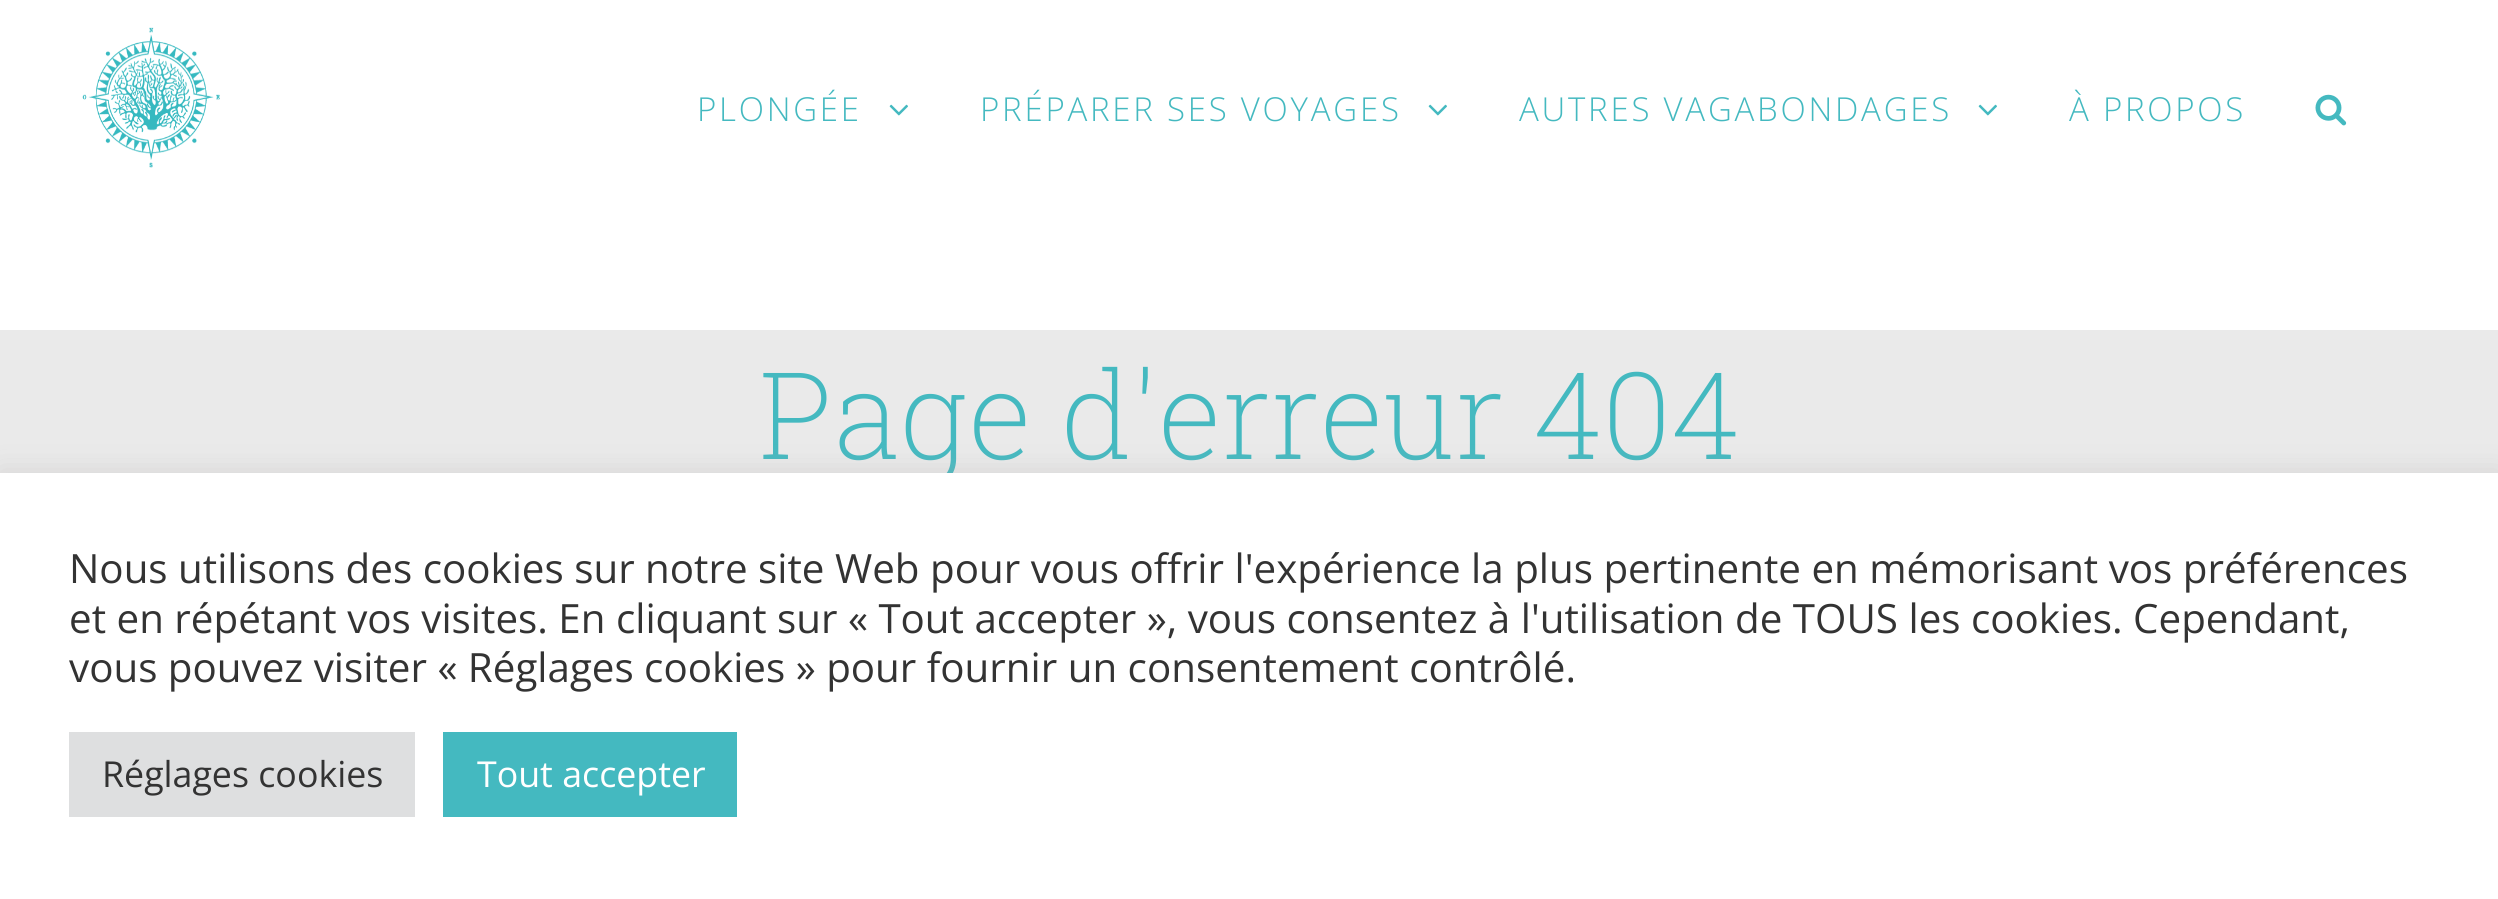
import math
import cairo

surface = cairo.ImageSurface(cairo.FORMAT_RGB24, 2498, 899)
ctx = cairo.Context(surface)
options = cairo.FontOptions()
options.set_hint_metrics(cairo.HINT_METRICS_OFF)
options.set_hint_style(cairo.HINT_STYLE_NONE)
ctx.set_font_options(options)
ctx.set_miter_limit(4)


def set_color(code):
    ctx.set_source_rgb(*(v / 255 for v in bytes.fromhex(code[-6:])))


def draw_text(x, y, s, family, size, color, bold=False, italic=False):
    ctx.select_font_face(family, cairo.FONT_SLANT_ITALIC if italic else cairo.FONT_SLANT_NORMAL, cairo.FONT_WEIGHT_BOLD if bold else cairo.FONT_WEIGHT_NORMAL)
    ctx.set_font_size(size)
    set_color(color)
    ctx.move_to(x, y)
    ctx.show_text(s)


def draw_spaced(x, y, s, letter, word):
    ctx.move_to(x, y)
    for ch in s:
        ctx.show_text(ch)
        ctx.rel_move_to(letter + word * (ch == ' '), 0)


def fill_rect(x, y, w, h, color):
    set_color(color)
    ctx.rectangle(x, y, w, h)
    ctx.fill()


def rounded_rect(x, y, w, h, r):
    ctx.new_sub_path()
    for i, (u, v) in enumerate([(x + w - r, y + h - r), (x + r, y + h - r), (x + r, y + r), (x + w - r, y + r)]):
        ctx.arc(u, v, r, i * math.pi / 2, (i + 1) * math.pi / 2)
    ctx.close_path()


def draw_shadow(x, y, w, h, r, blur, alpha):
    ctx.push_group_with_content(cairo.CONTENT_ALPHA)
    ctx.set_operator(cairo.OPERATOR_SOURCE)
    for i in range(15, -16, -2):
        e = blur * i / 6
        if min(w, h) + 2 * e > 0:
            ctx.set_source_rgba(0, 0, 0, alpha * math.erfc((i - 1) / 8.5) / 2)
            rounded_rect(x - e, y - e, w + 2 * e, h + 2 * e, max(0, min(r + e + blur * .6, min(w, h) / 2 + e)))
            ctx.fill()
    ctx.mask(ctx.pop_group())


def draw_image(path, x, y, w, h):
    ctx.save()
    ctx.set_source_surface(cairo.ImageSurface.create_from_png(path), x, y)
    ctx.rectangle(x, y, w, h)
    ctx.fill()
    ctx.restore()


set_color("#ffffff")
ctx.paint()
draw_image("assets/img1.png", 82, 27, 138, 141)
ctx.select_font_face("Open Sans Light")
ctx.set_font_size(33)
set_color("#44b9c0")
draw_spaced(697, 121, "PLONGÉE", 2.75, 0)
draw_image("assets/img2.png", 889, 104, 19, 12)
draw_spaced(980, 121, "PRÉPARER SES VOYAGES", 2.75, 0)
draw_image("assets/img2.png", 1428, 104, 19, 12)
draw_spaced(1519, 121, "AUTRES VAGABONDAGES", 2.75, 0)
draw_image("assets/img2.png", 1978, 104, 19, 12)
draw_spaced(2069, 121, "À PROPOS", 2.75, 0)
draw_image("assets/img3.png", 2315, 94, 32, 32)
fill_rect(0, 330, 2498, 143, "#eaeaea")
draw_text(759, 459, "Page d'erreur 404", "Roboto Slab ExtraLight", 121, "#44b9c0")
set_color("#acabab")
draw_shadow(0, 470, 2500, 427, 0, 14, 0.3)
fill_rect(0, 473, 2498, 426, "#ffffff")
draw_text(69, 583, "Nous utilisons des cookies sur notre site Web pour vous offrir l'expérience la plus pertinente en mémorisant vos préférences", "Open Sans", 40.33, "#333333")
draw_text(69, 633, "et en répétant vos visites. En cliquant sur « Tout accepter », vous consentez à l'utilisation de TOUS les cookies. Cependant,", "Open Sans", 40.33, "#333333")
draw_text(69, 682, "vous pouvez visiter « Réglages cookies » pour fournir un consentement contrôlé.", "Open Sans", 40.33, "#333333")
fill_rect(69, 732, 346, 85, "#dedfe0")
draw_text(102, 787, "Réglages cookies", "Open Sans", 35.75, "#333333")
fill_rect(443, 732, 294, 85, "#44b9c0")
draw_text(477, 787, "Tout accepter", "Open Sans", 35.75, "#ffffff")
surface.write_to_png("output.png")
